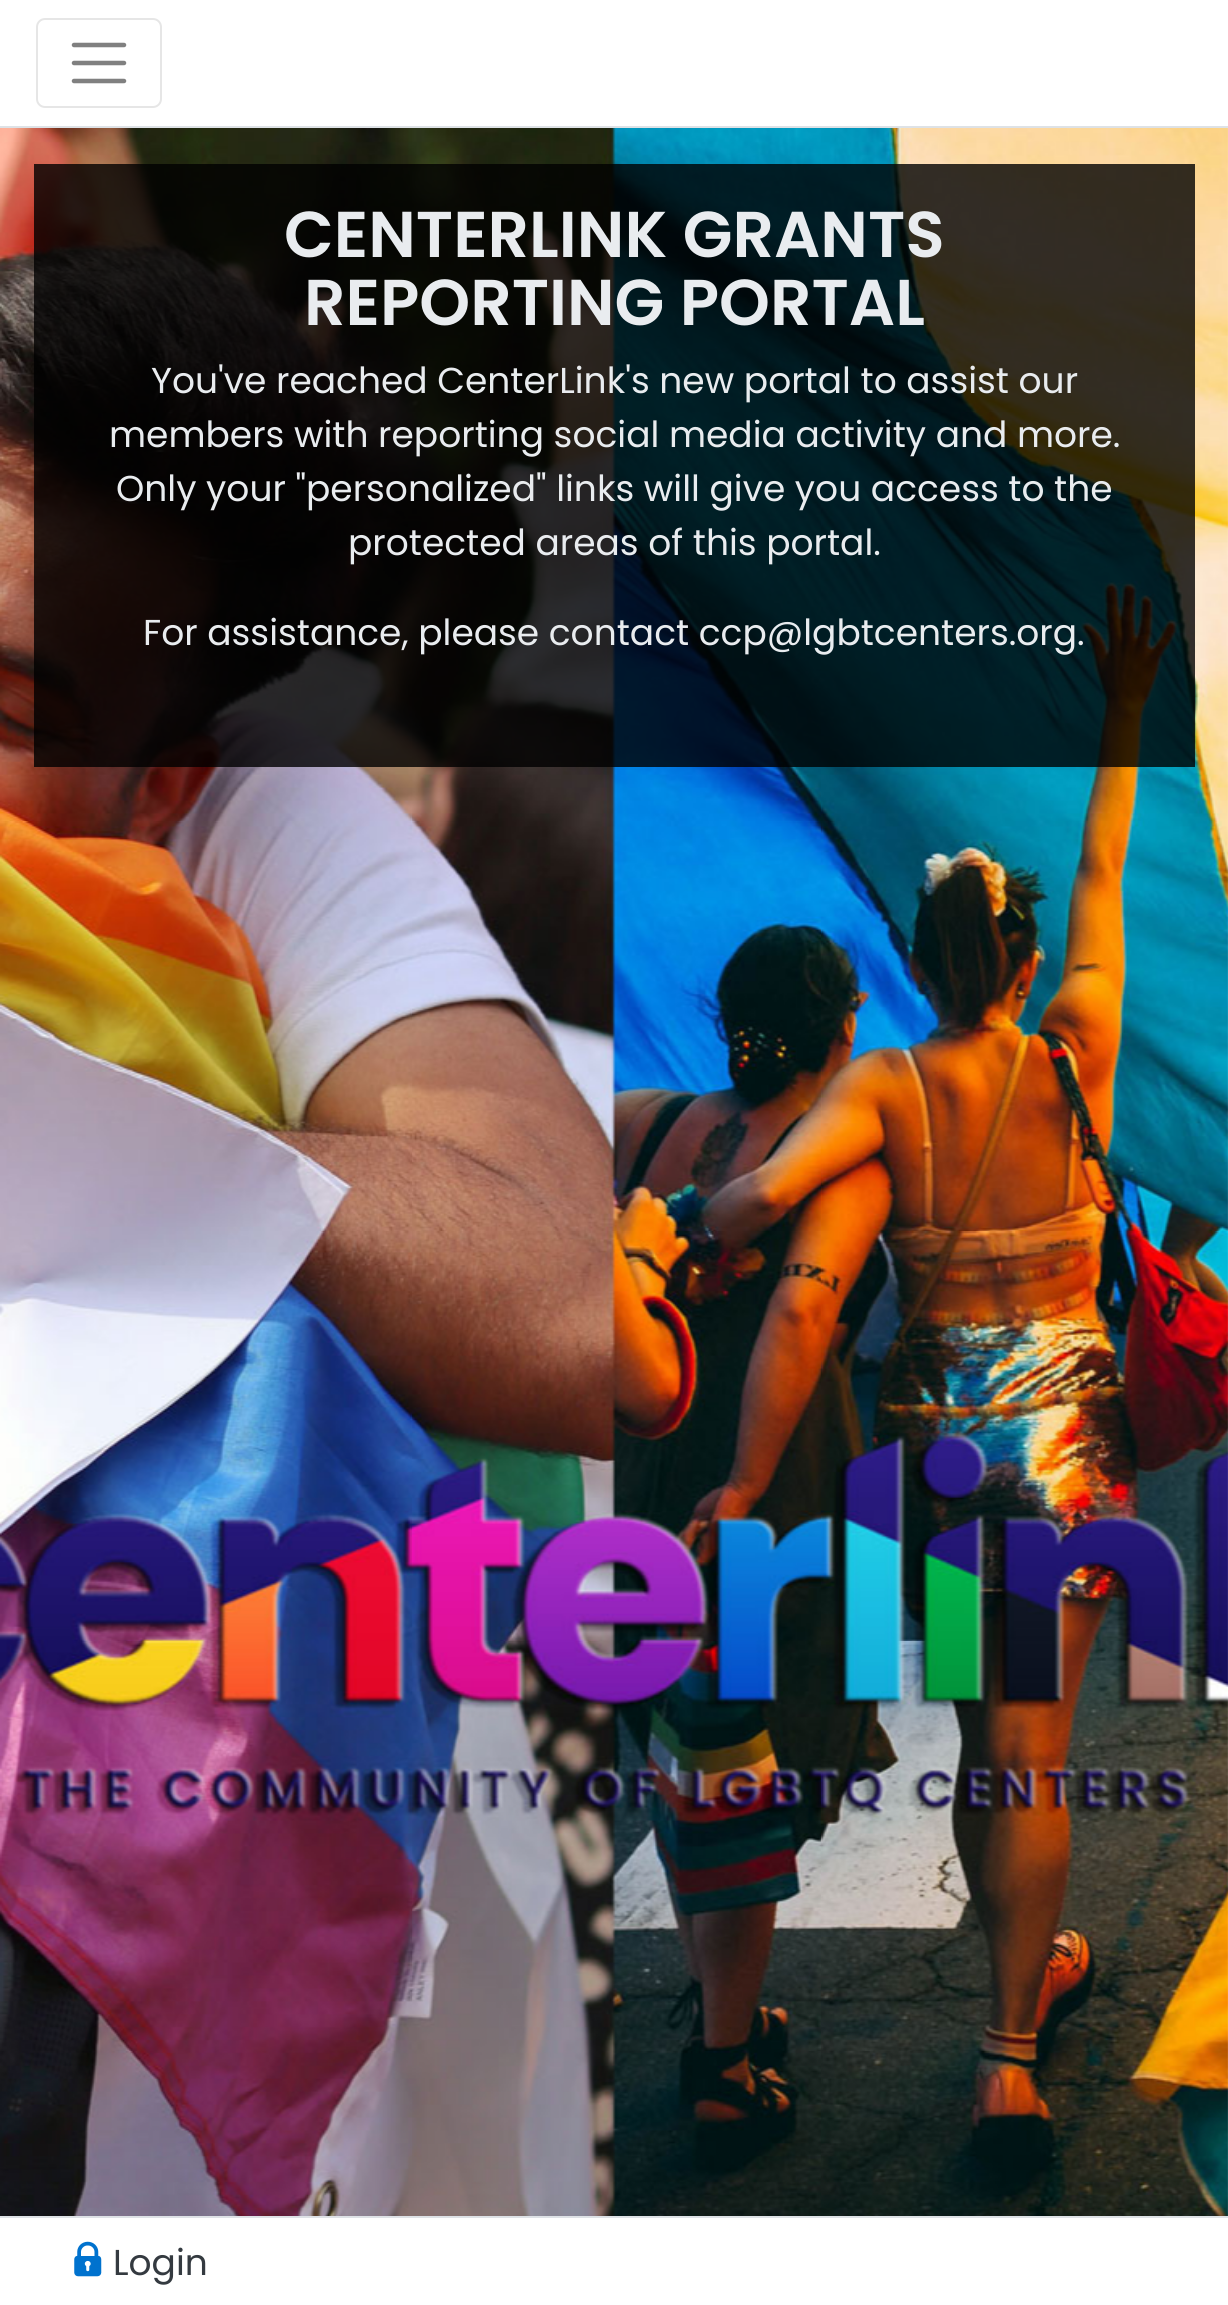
import math
import cairo

surface = cairo.ImageSurface(cairo.FORMAT_RGB24, 1228, 2305)
ctx = cairo.Context(surface)
options = cairo.FontOptions()
options.set_hint_metrics(cairo.HINT_METRICS_OFF)
options.set_hint_style(cairo.HINT_STYLE_NONE)
ctx.set_font_options(options)
ctx.set_miter_limit(4)


def set_color(code):
    ctx.set_source_rgb(*(v / 255 for v in bytes.fromhex(code[-6:])))


def draw_text(x, y, s, family, size, color, bold=False, italic=False):
    ctx.select_font_face(family, cairo.FONT_SLANT_ITALIC if italic else cairo.FONT_SLANT_NORMAL, cairo.FONT_WEIGHT_BOLD if bold else cairo.FONT_WEIGHT_NORMAL)
    ctx.set_font_size(size)
    set_color(color)
    ctx.move_to(x, y)
    ctx.show_text(s)


def fill_rect(x, y, w, h, color):
    set_color(color)
    ctx.rectangle(x, y, w, h)
    ctx.fill()


def rounded_rect(x, y, w, h, r):
    ctx.new_sub_path()
    for i, (u, v) in enumerate([(x + w - r, y + h - r), (x + r, y + h - r), (x + r, y + r), (x + w - r, y + r)]):
        ctx.arc(u, v, r, i * math.pi / 2, (i + 1) * math.pi / 2)
    ctx.close_path()


def draw_image(path, x, y, w, h):
    ctx.save()
    ctx.set_source_surface(cairo.ImageSurface.create_from_png(path), x, y)
    ctx.rectangle(x, y, w, h)
    ctx.fill()
    ctx.restore()


set_color("#ffffff")
ctx.paint()
draw_image("assets/img1.png", 0, 128, 1228, 2088)
fill_rect(0, 126, 1228, 2, "#dee2e6")
rounded_rect(37, 19, 124, 88, 8)
set_color("#e6e6e6")
ctx.stroke()
ctx.new_path()
ctx.move_to(74, 45)
ctx.line_to(124, 45)
ctx.move_to(74, 63)
ctx.line_to(124, 63)
ctx.move_to(74, 81)
ctx.line_to(124, 81)
set_color("#808080")
ctx.set_line_width(4.5)
ctx.set_line_cap(cairo.LINE_CAP_ROUND)
ctx.stroke()
ctx.set_source_rgba(0, 0, 0, 0.8)
ctx.rectangle(34, 164, 1161, 603)
ctx.fill()
draw_text(284, 257, "CENTERLINK GRANTS", "Poppins SemiBold", 64.75, "#e9ecef")
draw_text(304, 325, "REPORTING PORTAL", "Poppins SemiBold", 64.75, "#e9ecef")
draw_text(151, 393, "You've reached CenterLink's new portal to assist our", "Poppins", 36, "#e9ecef")
draw_text(109, 447, "members with reporting social media activity and more.", "Poppins", 36, "#e9ecef")
draw_text(116, 501, "Only your \"personalized\" links will give you access to the", "Poppins", 36, "#e9ecef")
draw_text(348, 555, "protected areas of this portal.", "Poppins", 36, "#e9ecef")
draw_text(143, 645, "For assistance, please contact ccp@lgbtcenters.org.", "Poppins", 36, "#e9ecef")
fill_rect(0, 2216, 1228, 2, "#dee2e6")
draw_image("assets/img2.png", 74, 2241, 28, 36)
draw_text(113, 2275, "Login", "Poppins", 36, "#343a40")
surface.write_to_png("output.png")
